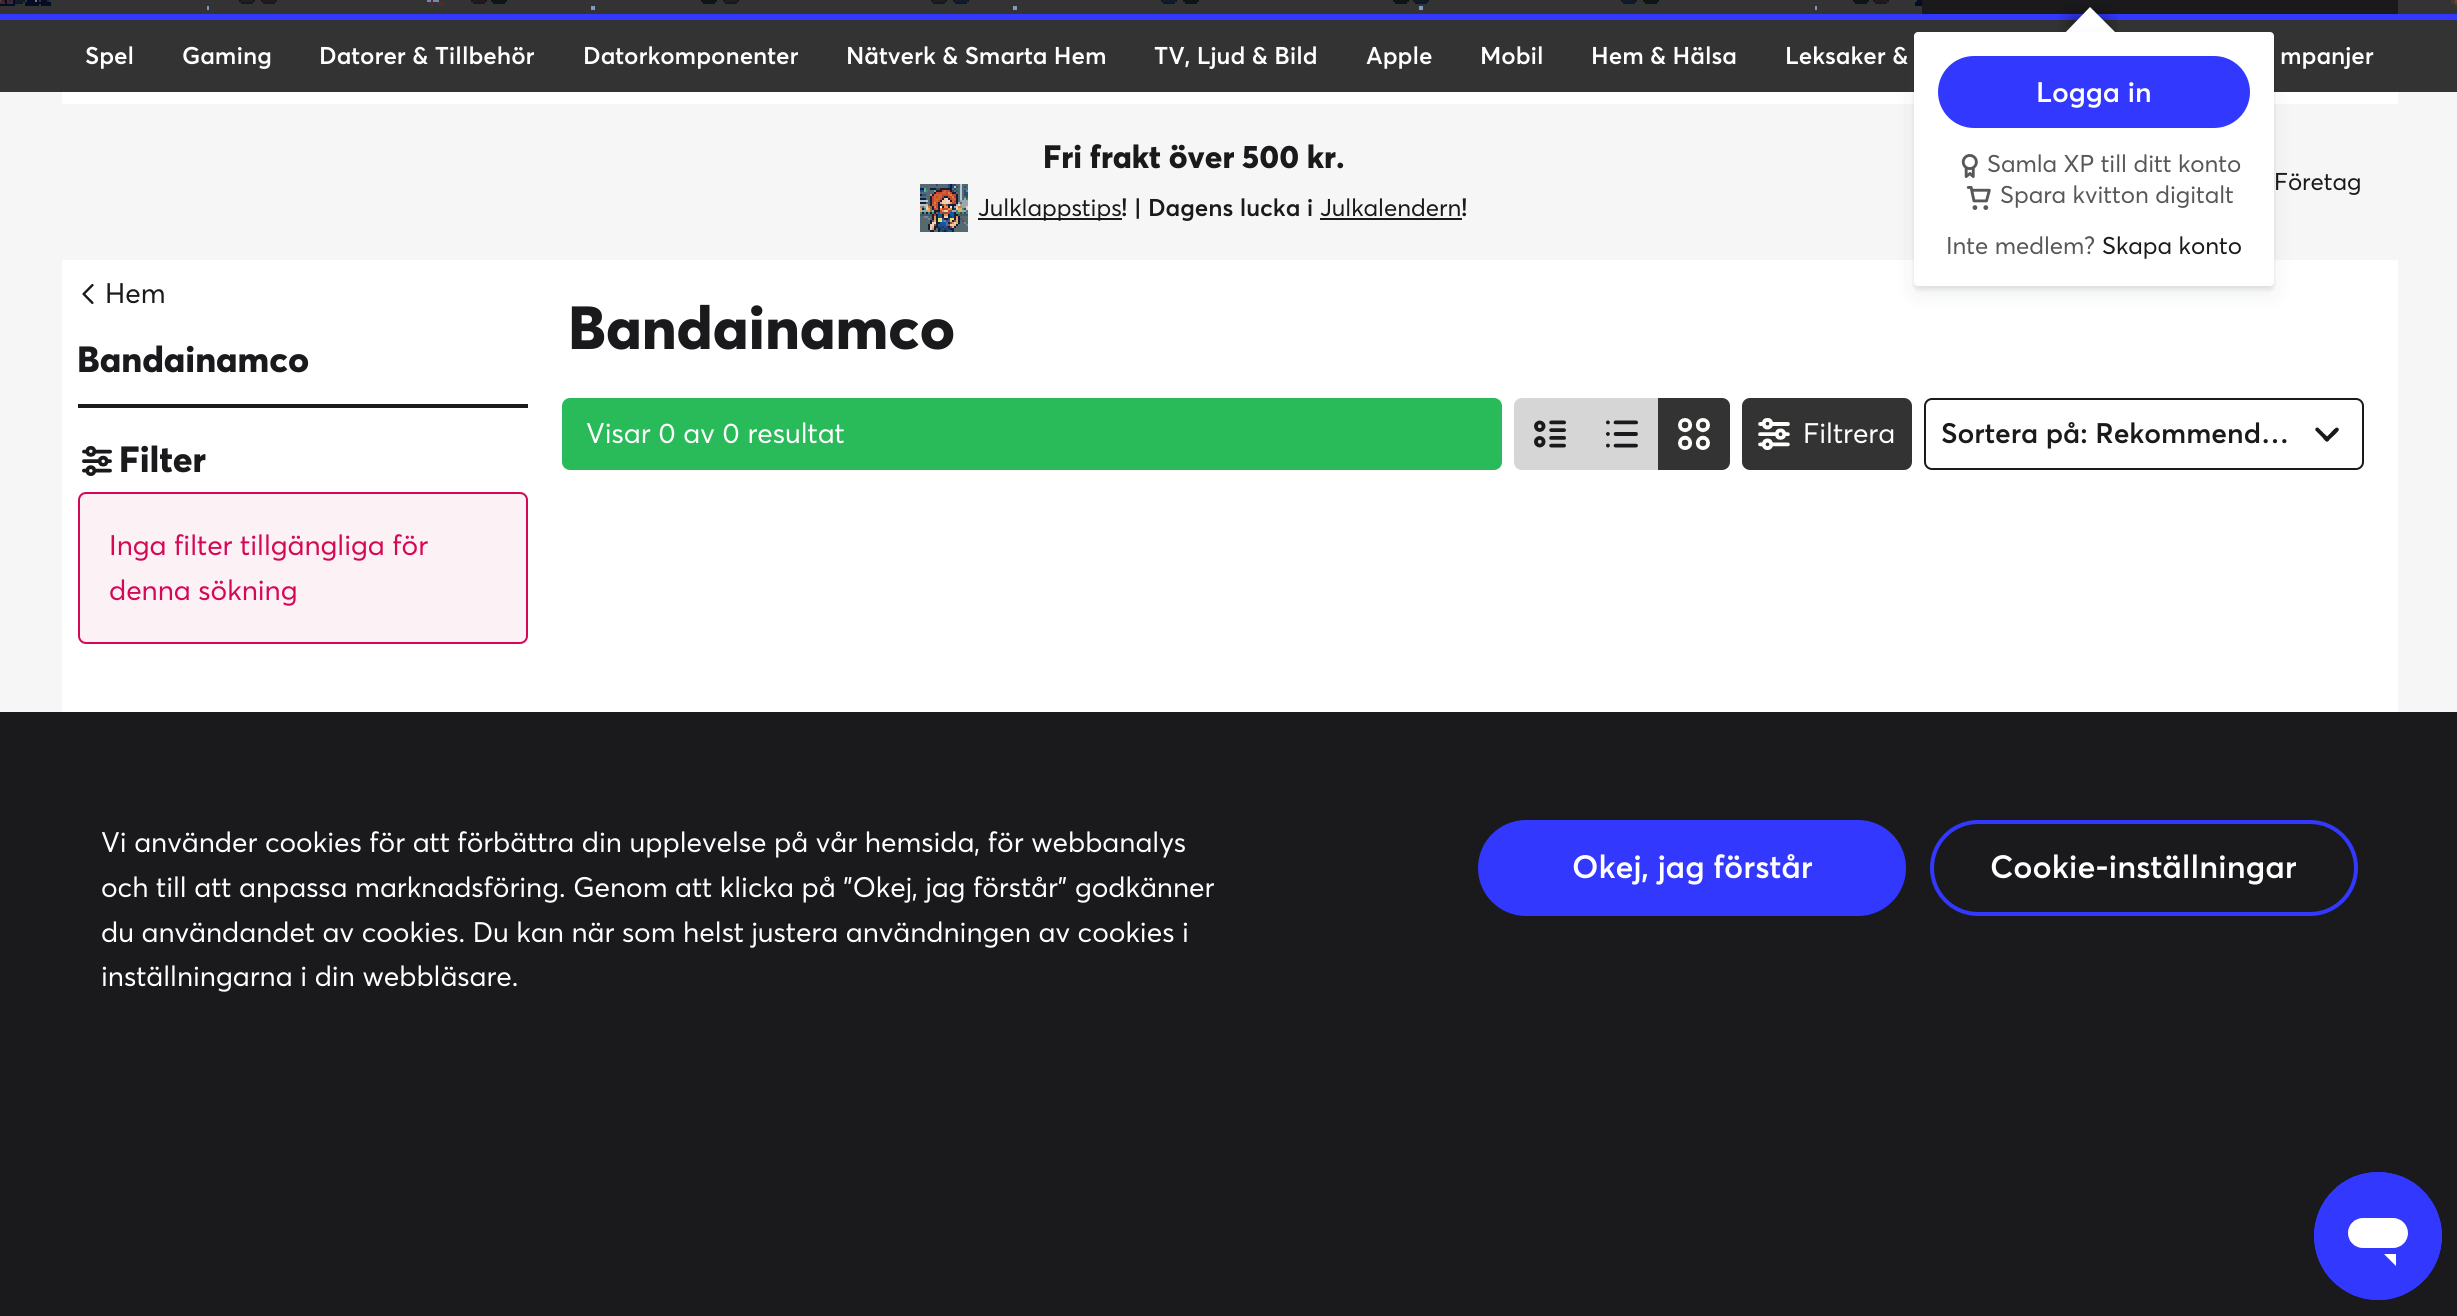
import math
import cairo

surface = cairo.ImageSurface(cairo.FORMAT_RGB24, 2457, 1316)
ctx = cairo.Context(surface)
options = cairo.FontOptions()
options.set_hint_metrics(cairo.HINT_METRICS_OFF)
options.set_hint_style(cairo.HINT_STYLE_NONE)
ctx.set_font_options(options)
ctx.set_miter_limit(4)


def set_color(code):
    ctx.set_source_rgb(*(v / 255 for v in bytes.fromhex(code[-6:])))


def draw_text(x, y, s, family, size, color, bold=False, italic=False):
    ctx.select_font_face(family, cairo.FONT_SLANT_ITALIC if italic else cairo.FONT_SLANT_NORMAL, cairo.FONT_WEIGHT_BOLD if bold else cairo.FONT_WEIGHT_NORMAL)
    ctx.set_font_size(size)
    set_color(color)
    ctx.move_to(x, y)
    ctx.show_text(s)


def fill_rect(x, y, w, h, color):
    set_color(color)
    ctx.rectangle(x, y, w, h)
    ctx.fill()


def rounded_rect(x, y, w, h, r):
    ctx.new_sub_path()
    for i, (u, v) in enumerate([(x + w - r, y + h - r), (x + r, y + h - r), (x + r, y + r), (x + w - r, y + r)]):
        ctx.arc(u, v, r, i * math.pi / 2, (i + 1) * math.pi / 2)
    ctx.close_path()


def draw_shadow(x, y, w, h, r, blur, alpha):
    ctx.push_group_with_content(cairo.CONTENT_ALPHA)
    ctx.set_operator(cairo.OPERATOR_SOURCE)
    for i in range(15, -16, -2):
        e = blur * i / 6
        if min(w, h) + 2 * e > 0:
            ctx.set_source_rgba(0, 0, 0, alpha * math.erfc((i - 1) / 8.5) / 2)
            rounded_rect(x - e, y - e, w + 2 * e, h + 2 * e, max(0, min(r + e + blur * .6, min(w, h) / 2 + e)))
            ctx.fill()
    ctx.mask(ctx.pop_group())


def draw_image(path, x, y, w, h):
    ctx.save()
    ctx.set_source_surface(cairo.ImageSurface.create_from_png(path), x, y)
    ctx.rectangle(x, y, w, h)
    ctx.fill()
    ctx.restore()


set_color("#f6f6f6")
ctx.paint()
fill_rect(0, 14, 2457, 6, "#3338ff")
fill_rect(0, 20, 2457, 72, "#333333")
draw_text(85, 64, "Spel", "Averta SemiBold", 24, "#ffffff")
draw_text(182, 64, "Gaming", "Averta SemiBold", 24, "#ffffff")
draw_text(319, 64, "Datorer & Tillbehör", "Averta SemiBold", 24, "#ffffff")
draw_text(583, 64, "Datorkomponenter", "Averta SemiBold", 24, "#ffffff")
draw_text(846, 64, "Nätverk & Smarta Hem", "Averta SemiBold", 24, "#ffffff")
draw_text(1154, 64, "TV, Ljud & Bild", "Averta SemiBold", 24, "#ffffff")
draw_text(1366, 64, "Apple", "Averta SemiBold", 24, "#ffffff")
draw_text(1480, 64, "Mobil", "Averta SemiBold", 24, "#ffffff")
draw_text(1591, 64, "Hem & Hälsa", "Averta SemiBold", 24, "#ffffff")
draw_text(1785, 64, "Leksaker &", "Averta SemiBold", 24, "#ffffff")
draw_text(2280, 64, "mpanjer", "Averta SemiBold", 24, "#ffffff")
draw_image("assets/img1.png", 0, 0, 2457, 14)
fill_rect(1922, 0, 476, 14, "#1a1a1d")
ctx.save()
ctx.rectangle(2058, 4, 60, 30)
ctx.clip()
set_color("#000000")
draw_shadow(2072, 18, 34, 34, 0, 10, 0.5)
ctx.restore()
set_color("#ffffff")
ctx.new_path()
ctx.move_to(2090, 7)
ctx.line_to(2120, 37)
ctx.line_to(2090, 67)
ctx.line_to(2061, 37)
ctx.close_path()
ctx.fill()
fill_rect(62, 92, 2336, 620, "#ffffff")
fill_rect(62, 104, 2336, 156, "#f6f6f6")
set_color("#35373a")
draw_shadow(1914, 40, 360, 254, 4, 12, 0.08)
set_color("#000000")
draw_shadow(1914, 36, 360, 254, 4, 2, 0.08)
set_color("#ffffff")
rounded_rect(1914, 32, 360, 254, 4)
ctx.fill()
set_color("#3338ff")
rounded_rect(1938, 56, 312, 72, 36)
ctx.fill()
draw_text(2036, 102, "Logga in", "Averta SemiBold", 28, "#ffffff")
draw_image("assets/img2.png", 1961, 154, 17, 24)
draw_text(1987, 172, "Samla XP till ditt konto", "Averta", 24, "#58585a")
draw_image("assets/img3.png", 1966, 186, 25, 24)
draw_text(2000, 203, "Spara kvitton digitalt", "Averta", 24, "#58585a")
draw_text(1946, 254, "Inte medlem?", "Averta", 24, "#58585a")
draw_text(2102, 254, "Skapa konto", "Averta", 24, "#1a1a1d")
draw_text(1043, 168, "Fri frakt över 500 kr.", "Averta ExtraBold", 32, "#1a1a1d")
draw_image("assets/img4.png", 920, 184, 48, 48)
fill_rect(978, 218, 144, 2, "#1a1a1d")
draw_text(978, 216, "Julklappstips", "Averta", 24, "#1a1a1d")
draw_text(1121, 216, "! | Dagens lucka i", "Averta SemiBold", 24, "#1a1a1d")
draw_text(1320, 216, "Julkalendern", "Averta", 24, "#1a1a1d")
fill_rect(1320, 218, 142, 2, "#1a1a1d")
draw_text(1461, 216, "!", "Averta SemiBold", 24, "#1a1a1d")
draw_text(2274, 190, "Företag", "Averta", 24, "#1a1a1d")
fill_rect(78, 404, 450, 4, "#1a1a1d")
draw_image("assets/img5.png", 82, 284, 12, 20)
draw_text(105, 303, "Hem", "Averta", 28, "#1a1a1d")
draw_text(77, 372, "Bandainamco", "Averta ExtraBold", 36, "#1a1a1d")
draw_image("assets/img6.png", 82, 446, 30, 30)
draw_text(119, 472, "Filter", "Averta ExtraBold", 36, "#1a1a1d")
set_color("#fcf1f5")
rounded_rect(79, 493, 448, 150, 7)
ctx.fill_preserve()
set_color("#d50855")
ctx.stroke()
draw_text(109, 555, "Inga filter tillgängliga för", "Averta", 28, "#d50855")
draw_text(109, 600, "denna sökning", "Averta", 28, "#d50855")
draw_text(568, 349, "Bandainamco", "Averta ExtraBold", 60, "#1a1a1d")
set_color("#29bb59")
rounded_rect(562, 398, 940, 72, 8)
ctx.fill()
draw_text(586, 443, "Visar 0 av 0 resultat", "Averta", 28, "#ffffff")
set_color("#d6d6d6")
ctx.new_path()
ctx.move_to(1522, 398)
ctx.line_to(1586, 398)
ctx.line_to(1586, 470)
ctx.line_to(1522, 470)
ctx.curve_to(1517.5, 470, 1514, 466.5, 1514, 462)
ctx.line_to(1514, 406)
ctx.curve_to(1514, 401.5, 1517.5, 398, 1522, 398)
ctx.close_path()
ctx.fill()
draw_image("assets/img7.png", 1534, 420, 32, 28)
fill_rect(1586, 398, 72, 72, "#d6d6d6")
draw_image("assets/img8.png", 1606, 420, 32, 28)
set_color("#333333")
ctx.new_path()
ctx.move_to(1658, 398)
ctx.line_to(1722, 398)
ctx.curve_to(1726.5, 398, 1730, 401.5, 1730, 406)
ctx.line_to(1730, 462)
ctx.curve_to(1730, 466.5, 1726.5, 470, 1722, 470)
ctx.line_to(1658, 470)
ctx.close_path()
ctx.fill()
draw_image("assets/img9.png", 1678, 418, 32, 32)
rounded_rect(1742, 398, 170, 72, 8)
ctx.fill()
draw_image("assets/img10.png", 1758, 418, 32, 32)
draw_text(1803, 443, "Filtrera", "Averta", 28, "#ffffff")
rounded_rect(1925, 399, 438, 70, 7)
set_color("#1a1a1d")
ctx.stroke()
draw_text(1941, 443, "Sortera på: Rekommend…", "Averta SemiBold", 28, "#1a1a1d")
ctx.new_path()
ctx.move_to(2318.5, 428)
ctx.line_to(2323.5, 433)
ctx.curve_to(2325, 434.5, 2329.5, 438, 2329, 440)
ctx.line_to(2328.5, 441)
ctx.curve_to(2326, 442.5, 2323.5, 439, 2322.5, 437.5)
ctx.line_to(2315.5, 430.5)
ctx.curve_to(2314.5, 428.5, 2317, 426.5, 2318.5, 428)
ctx.close_path()
ctx.fill()
ctx.new_path()
ctx.move_to(2325.5, 438)
ctx.line_to(2330.5, 433)
ctx.curve_to(2331.5, 432, 2335, 427.5, 2337, 427.5)
ctx.line_to(2338.5, 428.5)
ctx.curve_to(2340, 430.5, 2336, 433, 2335, 434.5)
ctx.line_to(2327.5, 441.5)
ctx.curve_to(2325.5, 442, 2324, 439.5, 2325.5, 438)
ctx.close_path()
ctx.fill()
fill_rect(0, 712, 2457, 604, "#1a1a1d")
draw_text(101, 852, "Vi använder cookies för att förbättra din upplevelse på vår hemsida, för webbanalys", "Averta", 28, "#ffffff")
draw_text(101, 897, "och till att anpassa marknadsföring. Genom att klicka på ”Okej, jag förstår” godkänner", "Averta", 28, "#ffffff")
draw_text(101, 942, "du användandet av cookies. Du kan när som helst justera användningen av cookies i", "Averta", 28, "#ffffff")
draw_text(101, 986, "inställningarna i din webbläsare.", "Averta", 28, "#ffffff")
set_color("#3338ff")
rounded_rect(1478, 820, 428, 96, 48)
ctx.fill()
draw_text(1572, 878, "Okej, jag förstår", "Averta SemiBold", 32, "#ffffff")
rounded_rect(1932, 822, 424, 92, 46)
set_color("#3338ff")
ctx.set_line_width(4)
ctx.stroke()
draw_text(1990, 878, "Cookie-inställningar", "Averta SemiBold", 32, "#ffffff")
draw_image("assets/img11.png", 2314, 1172, 128, 128)
surface.write_to_png("output.png")
